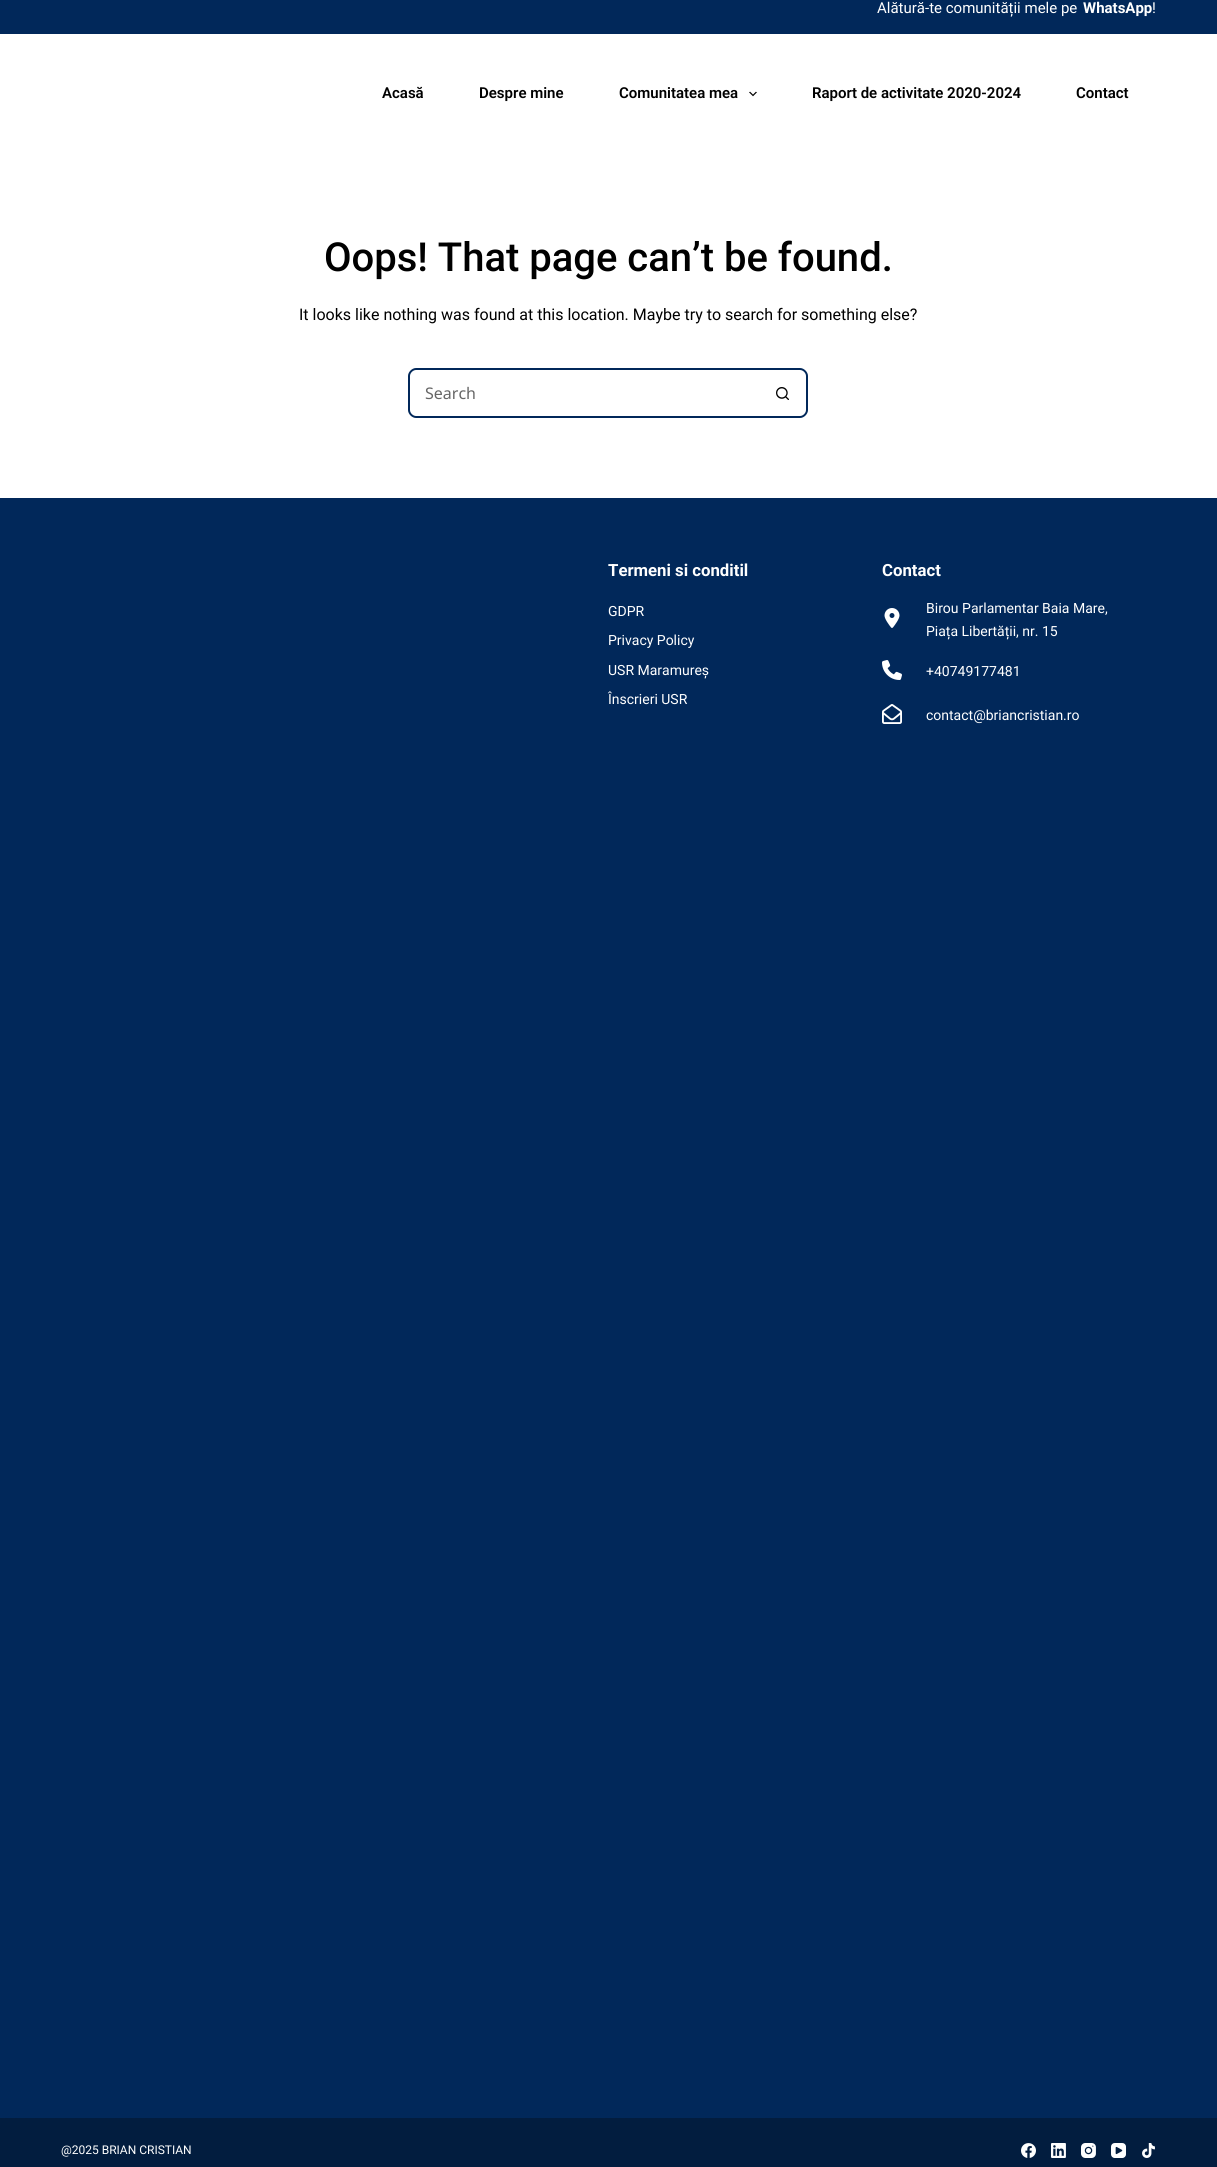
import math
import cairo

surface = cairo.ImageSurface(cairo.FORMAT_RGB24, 1217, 2167)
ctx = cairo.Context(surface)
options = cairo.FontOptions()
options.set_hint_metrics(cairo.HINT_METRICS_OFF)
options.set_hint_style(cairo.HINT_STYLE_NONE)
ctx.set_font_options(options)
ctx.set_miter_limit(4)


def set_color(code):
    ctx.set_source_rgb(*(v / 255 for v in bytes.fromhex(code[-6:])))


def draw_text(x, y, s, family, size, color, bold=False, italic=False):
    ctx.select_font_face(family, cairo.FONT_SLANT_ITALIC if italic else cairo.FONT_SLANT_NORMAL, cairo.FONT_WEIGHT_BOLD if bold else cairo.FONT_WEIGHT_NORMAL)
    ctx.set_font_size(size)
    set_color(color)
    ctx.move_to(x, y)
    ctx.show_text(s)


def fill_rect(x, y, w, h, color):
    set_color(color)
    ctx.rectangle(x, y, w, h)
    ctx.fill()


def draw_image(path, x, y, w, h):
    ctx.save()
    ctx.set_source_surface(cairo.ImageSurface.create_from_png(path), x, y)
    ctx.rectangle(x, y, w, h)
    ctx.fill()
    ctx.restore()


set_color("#ffffff")
ctx.paint()
fill_rect(0, 0, 1217, 34, "#01285a")
draw_text(877, 13, "Alătură-te comunității mele pe", "Roboto", 15, "#ffffff")
draw_text(1083, 13, "WhatsApp", "Roboto", 15, "#ffffff", bold=True)
draw_text(1152, 13, "!", "Roboto", 15, "#ffffff")
draw_text(382, 98, "Acasă", "Roboto SemiBold", 15, "#000000")
draw_text(479, 98, "Despre mine", "Roboto SemiBold", 15, "#000000")
draw_text(619, 98, "Comunitatea mea", "Roboto SemiBold", 15, "#000000")
draw_image("assets/img1.png", 749, 91, 8, 6)
draw_text(812, 98, "Raport de activitate 2020-2024", "Roboto SemiBold", 15, "#000000")
draw_text(1076, 98, "Contact", "Roboto SemiBold", 15, "#000000")
draw_text(324, 271, "Oops! That page can’t be found.", "Roboto Medium", 40, "#000000")
draw_text(299, 320, "It looks like nothing was found at this location. Maybe try to search for something else?", "Roboto", 16, "#000000")
set_color("#01285a")
ctx.set_fill_rule(cairo.FILL_RULE_EVEN_ODD)
ctx.new_path()
ctx.move_to(416, 368)
ctx.line_to(758, 368)
ctx.line_to(758, 418)
ctx.line_to(416, 418)
ctx.curve_to(412, 418, 408, 414, 408, 410)
ctx.line_to(408, 376)
ctx.curve_to(408, 372, 412, 368, 416, 368)
ctx.close_path()
ctx.move_to(416, 370)
ctx.line_to(758, 370)
ctx.line_to(758, 416)
ctx.line_to(416, 416)
ctx.curve_to(413, 416, 410, 413, 410, 410)
ctx.line_to(410, 376)
ctx.curve_to(410, 373, 413, 370, 416, 370)
ctx.close_path()
ctx.fill()
draw_text(425, 399, "Search", "Noto Sans", 16, "#666666")
set_color("#01285a")
ctx.new_path()
ctx.move_to(758, 368)
ctx.line_to(800, 368)
ctx.curve_to(804, 368, 808, 372, 808, 376)
ctx.line_to(808, 410)
ctx.curve_to(808, 414, 804, 418, 800, 418)
ctx.line_to(758, 418)
ctx.close_path()
ctx.move_to(758, 370)
ctx.line_to(800, 370)
ctx.curve_to(803, 370, 806, 373, 806, 376)
ctx.line_to(806, 410)
ctx.curve_to(806, 413, 803, 416, 800, 416)
ctx.line_to(758, 416)
ctx.close_path()
ctx.fill()
draw_image("assets/img2.png", 776, 387, 13, 13)
ctx.new_path()
ctx.move_to(775, 390.5)
ctx.curve_to(776.5, 386.5, 780.5, 384.5, 784.5, 386)
set_color("#ffffff")
ctx.set_line_width(1.5)
ctx.set_line_cap(cairo.LINE_CAP_ROUND)
ctx.stroke()
fill_rect(0, 498, 1217, 1620, "#01285a")
draw_text(608, 576, "Termeni si conditil", "Roboto", 16.75, "#ffffff", bold=True)
draw_text(608, 616, "GDPR", "Roboto", 14, "#ffffff")
draw_text(608, 645, "Privacy Policy", "Roboto", 14, "#ffffff")
draw_text(608, 675, "USR Maramureș", "Roboto", 14, "#ffffff")
draw_text(608, 704, "Înscrieri USR", "Roboto", 14, "#ffffff")
draw_text(882, 576, "Contact", "Roboto", 16.75, "#ffffff", bold=True)
draw_image("assets/img3.png", 884, 608, 16, 20)
draw_text(926, 613, "Birou Parlamentar Baia Mare,", "Roboto", 14, "#ffffff")
draw_text(926, 636, "Piața Libertății, nr. 15", "Roboto", 14, "#ffffff")
draw_image("assets/img4.png", 882, 660, 20, 20)
draw_text(926, 676, "+40749177481", "Roboto", 14, "#ffffff")
draw_image("assets/img5.png", 882, 704, 20, 20)
draw_text(926, 720, "contact@briancristian.ro", "Roboto", 14, "#ffffff")
fill_rect(0, 2118, 1217, 49, "#021d3f")
draw_text(61, 2154, "@2025 BRIAN CRISTIAN", "Roboto", 12, "#ffffff")
draw_image("assets/img6.png", 1021, 2143, 15, 15)
draw_image("assets/img7.png", 1051, 2143, 15, 15)
draw_image("assets/img8.png", 1081, 2143, 15, 15)
draw_image("assets/img9.png", 1111, 2143, 15, 15)
draw_image("assets/img10.png", 1142, 2143, 13, 15)
surface.write_to_png("output.png")
